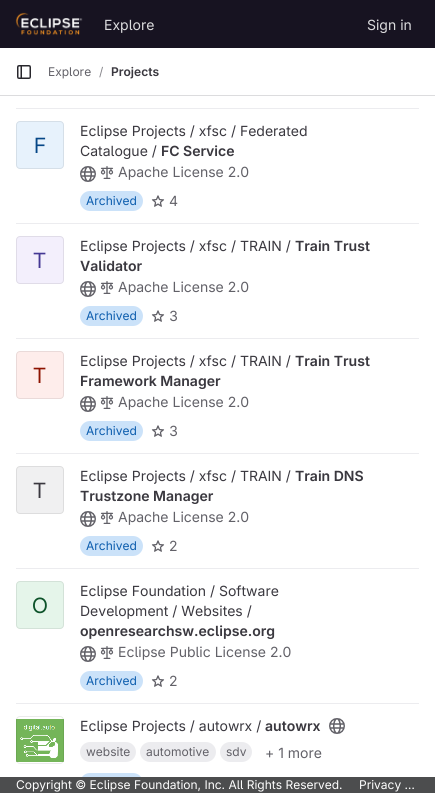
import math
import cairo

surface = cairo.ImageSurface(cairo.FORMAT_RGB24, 435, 793)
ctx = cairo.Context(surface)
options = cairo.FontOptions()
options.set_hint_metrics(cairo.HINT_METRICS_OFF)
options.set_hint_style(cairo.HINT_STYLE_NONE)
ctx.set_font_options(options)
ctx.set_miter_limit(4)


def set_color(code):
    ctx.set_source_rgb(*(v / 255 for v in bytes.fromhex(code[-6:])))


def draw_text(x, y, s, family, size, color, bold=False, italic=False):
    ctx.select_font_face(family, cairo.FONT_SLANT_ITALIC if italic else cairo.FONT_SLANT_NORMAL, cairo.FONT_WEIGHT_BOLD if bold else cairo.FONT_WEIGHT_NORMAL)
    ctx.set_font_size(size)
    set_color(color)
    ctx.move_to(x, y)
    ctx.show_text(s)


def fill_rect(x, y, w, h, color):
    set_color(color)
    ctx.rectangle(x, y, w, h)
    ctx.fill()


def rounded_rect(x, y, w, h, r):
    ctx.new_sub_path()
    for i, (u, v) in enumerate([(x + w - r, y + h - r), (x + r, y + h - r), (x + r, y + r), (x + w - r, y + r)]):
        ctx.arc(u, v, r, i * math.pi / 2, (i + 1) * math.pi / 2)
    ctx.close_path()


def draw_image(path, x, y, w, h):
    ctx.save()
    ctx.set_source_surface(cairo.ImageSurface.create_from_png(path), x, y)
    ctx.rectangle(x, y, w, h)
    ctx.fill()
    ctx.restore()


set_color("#ffffff")
ctx.paint()
fill_rect(0, 0, 435, 48, "#171321")
draw_image("assets/img1.png", 15, 12, 68, 24)
draw_text(104, 30, "Explore", "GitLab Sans", 14, "#dcdcde")
draw_text(367, 30, "Sign in", "GitLab Sans", 14, "#dcdcde")
fill_rect(0, 95, 435, 1, "#dcdcde")
draw_image("assets/img2.png", 17, 65, 14, 14)
draw_text(48, 76, "Explore", "GitLab Sans", 12, "#626168")
draw_text(99, 76, "/", "GitLab Sans", 12, "#89888d")
draw_text(111, 76, "Projects", "GitLab Sans SemiBold", 12, "#3a383f")
fill_rect(16, 108, 403, 1, "#ececef")
fill_rect(16, 223, 403, 1, "#ececef")
set_color("#e7f2fc")
rounded_rect(16, 121, 48, 48, 4)
ctx.fill()
rounded_rect(16.5, 121.5, 47, 47, 3.5)
ctx.set_source_rgba(0.02, 0.02, 0.024, 0.08)
ctx.set_line_width(1)
ctx.stroke()
draw_text(34, 153, "F", "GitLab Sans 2", 21, "#064787")
draw_text(80, 136, "Eclipse Projects / xfsc / Federated", "GitLab Sans", 14, "#3a383f")
draw_text(80, 156, "Catalogue /", "GitLab Sans", 14, "#3a383f")
draw_text(161, 156, "FC Service", "GitLab Sans SemiBold", 14, "#3a383f")
draw_image("assets/img3.png", 80, 166, 16, 16)
draw_image("assets/img4.png", 100, 166, 14, 13)
draw_text(118, 177, "Apache License 2.0", "GitLab Sans", 14, "#626168")
set_color("#cbe2f9")
rounded_rect(80, 191, 63, 20, 10)
ctx.fill()
draw_text(86, 205, "Archived", "GitLab Sans", 12, "#0b5cad")
draw_image("assets/img5.png", 151, 195, 14, 12)
draw_text(169, 206, "4", "GitLab Sans", 14, "#626168")
fill_rect(16, 338, 403, 1, "#ececef")
set_color("#f3effc")
rounded_rect(16, 236, 48, 48, 4)
ctx.fill()
rounded_rect(16.5, 236.5, 47, 47, 3.5)
ctx.set_source_rgba(0.02, 0.02, 0.024, 0.08)
ctx.stroke()
draw_text(33, 268, "T", "GitLab Sans 2", 21, "#453894")
draw_text(80, 251, "Eclipse Projects / xfsc / TRAIN /", "GitLab Sans", 14, "#3a383f")
draw_text(295, 251, "Train Trust", "GitLab Sans SemiBold", 14, "#3a383f")
draw_text(80, 271, "Validator", "GitLab Sans SemiBold", 14, "#3a383f")
draw_image("assets/img3.png", 80, 281, 16, 16)
draw_image("assets/img4.png", 100, 281, 14, 13)
draw_text(118, 292, "Apache License 2.0", "GitLab Sans", 14, "#626168")
set_color("#cbe2f9")
rounded_rect(80, 306, 63, 20, 10)
ctx.fill()
draw_text(86, 320, "Archived", "GitLab Sans", 12, "#0b5cad")
draw_image("assets/img5.png", 151, 310, 14, 12)
draw_text(169, 321, "3", "GitLab Sans", 14, "#626168")
fill_rect(16, 453, 403, 1, "#ececef")
set_color("#feedeb")
rounded_rect(16, 351, 48, 48, 4)
ctx.fill()
rounded_rect(16.5, 351.5, 47, 47, 3.5)
ctx.set_source_rgba(0.02, 0.02, 0.024, 0.08)
ctx.stroke()
draw_text(33, 383, "T", "GitLab Sans 2", 21, "#8d1300")
draw_text(80, 366, "Eclipse Projects / xfsc / TRAIN /", "GitLab Sans", 14, "#3a383f")
draw_text(295, 366, "Train Trust", "GitLab Sans SemiBold", 14, "#3a383f")
draw_text(80, 386, "Framework Manager", "GitLab Sans SemiBold", 14, "#3a383f")
draw_image("assets/img3.png", 80, 396, 16, 16)
draw_image("assets/img4.png", 100, 396, 14, 13)
draw_text(118, 407, "Apache License 2.0", "GitLab Sans", 14, "#626168")
set_color("#cbe2f9")
rounded_rect(80, 421, 63, 20, 10)
ctx.fill()
draw_text(86, 435, "Archived", "GitLab Sans", 12, "#0b5cad")
draw_image("assets/img5.png", 151, 425, 14, 12)
draw_text(169, 436, "3", "GitLab Sans", 14, "#626168")
fill_rect(16, 568, 403, 1, "#ececef")
set_color("#f0f0f1")
rounded_rect(16, 466, 48, 48, 4)
ctx.fill()
rounded_rect(16.5, 466.5, 47, 47, 3.5)
ctx.set_source_rgba(0.02, 0.02, 0.024, 0.08)
ctx.stroke()
draw_text(33, 498, "T", "GitLab Sans 2", 21, "#3a383f")
draw_text(80, 481, "Eclipse Projects / xfsc / TRAIN /", "GitLab Sans", 14, "#3a383f")
draw_text(295, 481, "Train DNS", "GitLab Sans SemiBold", 14, "#3a383f")
draw_text(80, 501, "Trustzone Manager", "GitLab Sans SemiBold", 14, "#3a383f")
draw_image("assets/img3.png", 80, 511, 16, 16)
draw_image("assets/img4.png", 100, 511, 14, 13)
draw_text(118, 522, "Apache License 2.0", "GitLab Sans", 14, "#626168")
set_color("#cbe2f9")
rounded_rect(80, 536, 63, 20, 10)
ctx.fill()
draw_text(86, 550, "Archived", "GitLab Sans", 12, "#0b5cad")
draw_image("assets/img5.png", 151, 540, 14, 12)
draw_text(169, 551, "2", "GitLab Sans", 14, "#626168")
fill_rect(16, 703, 403, 1, "#ececef")
set_color("#e5f5ea")
rounded_rect(16, 581, 48, 48, 4)
ctx.fill()
rounded_rect(16.5, 581.5, 47, 47, 3.5)
ctx.set_source_rgba(0.02, 0.02, 0.024, 0.08)
ctx.stroke()
draw_text(32, 613, "O", "GitLab Sans 2", 21, "#0d532a")
draw_text(80, 596, "Eclipse Foundation / Software", "GitLab Sans", 14, "#3a383f")
draw_text(80, 616, "Development / Websites /", "GitLab Sans", 14, "#3a383f")
draw_text(80, 636, "openresearchsw.eclipse.org", "GitLab Sans SemiBold", 14, "#3a383f")
draw_image("assets/img3.png", 80, 646, 16, 16)
draw_image("assets/img4.png", 100, 646, 14, 13)
draw_text(118, 657, "Eclipse Public License 2.0", "GitLab Sans", 14, "#626168")
set_color("#cbe2f9")
rounded_rect(80, 671, 63, 20, 10)
ctx.fill()
draw_text(86, 685, "Archived", "GitLab Sans", 12, "#0b5cad")
draw_image("assets/img5.png", 151, 675, 14, 12)
draw_text(169, 686, "2", "GitLab Sans", 14, "#626168")
draw_image("assets/img6.png", 16, 719, 48, 43)
rounded_rect(16.5, 716.5, 47, 47, 3.5)
ctx.set_source_rgba(0.02, 0.02, 0.024, 0.08)
ctx.stroke()
draw_text(80, 731, "Eclipse Projects / autowrx /", "GitLab Sans", 14, "#3a383f")
draw_text(265, 731, "autowrx", "GitLab Sans SemiBold", 14, "#3a383f")
draw_image("assets/img3.png", 329, 718, 16, 16)
set_color("#ececef")
rounded_rect(80, 742, 56, 20, 10)
ctx.fill()
draw_text(86, 756, "website", "GitLab Sans", 12, "#626168")
set_color("#ececef")
rounded_rect(140, 742, 76, 20, 10)
ctx.fill()
draw_text(146, 756, "automotive", "GitLab Sans", 12, "#626168")
set_color("#ececef")
rounded_rect(220, 742, 32, 20, 10)
ctx.fill()
draw_text(226, 756, "sdv", "GitLab Sans", 12, "#626168")
draw_text(265, 758, "+ 1 more", "GitLab Sans", 14, "#626168")
set_color("#cbe2f9")
rounded_rect(80, 773, 63, 20, 10)
ctx.fill()
fill_rect(0, 777, 435, 16, "#4c4d4e")
draw_text(16, 789, "Copyright © Eclipse Foundation, Inc. All Rights Reserved.", "GitLab Sans", 12, "#ffffff")
draw_text(359, 789, "Privacy …", "GitLab Sans", 12, "#ffffff")
surface.write_to_png("output.png")
